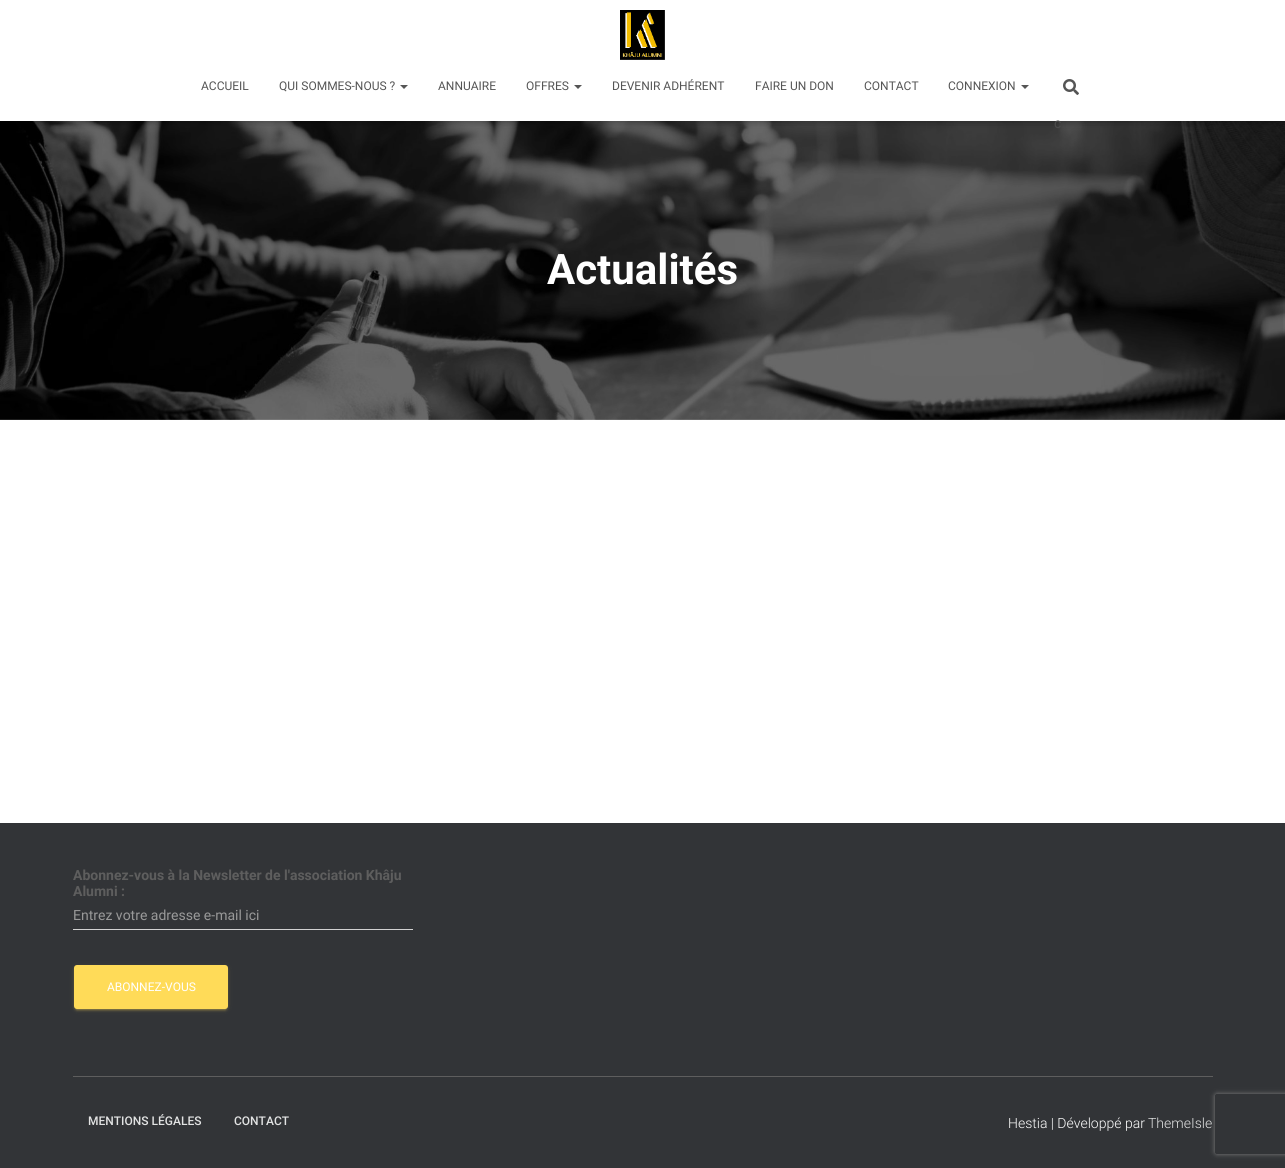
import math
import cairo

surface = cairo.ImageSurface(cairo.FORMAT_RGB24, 1285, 1168)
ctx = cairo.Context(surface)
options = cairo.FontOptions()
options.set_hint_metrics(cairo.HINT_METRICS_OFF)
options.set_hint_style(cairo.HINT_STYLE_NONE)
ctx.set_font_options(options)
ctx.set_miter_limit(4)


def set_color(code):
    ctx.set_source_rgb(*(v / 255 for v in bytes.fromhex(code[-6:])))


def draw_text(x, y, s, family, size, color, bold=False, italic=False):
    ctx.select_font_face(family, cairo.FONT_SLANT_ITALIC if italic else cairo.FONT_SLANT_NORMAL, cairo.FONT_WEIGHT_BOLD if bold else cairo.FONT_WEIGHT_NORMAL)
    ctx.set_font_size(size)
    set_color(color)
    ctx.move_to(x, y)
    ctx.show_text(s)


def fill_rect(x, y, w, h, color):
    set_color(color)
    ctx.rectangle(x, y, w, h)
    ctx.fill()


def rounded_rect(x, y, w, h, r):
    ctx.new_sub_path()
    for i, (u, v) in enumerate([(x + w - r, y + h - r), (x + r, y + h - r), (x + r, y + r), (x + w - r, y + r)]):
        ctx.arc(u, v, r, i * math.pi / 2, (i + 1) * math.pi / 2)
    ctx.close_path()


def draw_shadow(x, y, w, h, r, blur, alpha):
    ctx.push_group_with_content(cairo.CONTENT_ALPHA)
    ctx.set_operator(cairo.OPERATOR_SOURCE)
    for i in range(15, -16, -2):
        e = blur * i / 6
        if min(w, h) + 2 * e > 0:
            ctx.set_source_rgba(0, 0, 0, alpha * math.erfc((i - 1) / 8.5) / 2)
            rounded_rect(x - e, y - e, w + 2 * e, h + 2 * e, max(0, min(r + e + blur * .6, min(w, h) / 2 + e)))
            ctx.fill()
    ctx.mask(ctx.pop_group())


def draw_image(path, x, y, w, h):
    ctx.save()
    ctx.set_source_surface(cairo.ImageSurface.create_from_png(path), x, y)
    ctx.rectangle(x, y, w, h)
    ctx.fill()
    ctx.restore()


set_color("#ffffff")
ctx.paint()
draw_image("assets/img3.png", 0, 121, 1285, 299)
set_color("#000000")
draw_shadow(2, 6, 1281, 117, 0, 2.5, 0.1)
draw_shadow(0, 1, 1285, 121, 0, 5, 0.12)
draw_shadow(6, 7, 1273, 109, 0, 5, 0.42)
fill_rect(0, 0, 1285, 121, "#ffffff")
draw_image("assets/img1.png", 620, 10, 45, 50)
draw_text(201, 90, "ACCUEIL", "Roboto", 12, "#555555")
draw_text(279, 90, "QUI SOMMES-NOUS ?", "Roboto", 12, "#555555")
ctx.new_path()
ctx.move_to(400, 85)
ctx.line_to(408, 85)
ctx.line_to(404, 89)
ctx.close_path()
ctx.fill()
draw_text(438, 90, "ANNUAIRE", "Roboto", 12, "#555555")
draw_text(526, 90, "OFFRES", "Roboto", 12, "#555555")
ctx.new_path()
ctx.move_to(574, 85)
ctx.line_to(582, 85)
ctx.line_to(578, 89)
ctx.close_path()
ctx.fill()
draw_text(612, 90, "DEVENIR ADHÉRENT", "Roboto", 12, "#555555")
draw_text(755, 90, "FAIRE UN DON", "Roboto", 12, "#555555")
draw_text(864, 90, "CONTACT", "Roboto", 12, "#555555")
draw_text(948, 90, "CONNEXION", "Roboto", 12, "#555555")
ctx.new_path()
ctx.move_to(1021, 85)
ctx.line_to(1029, 85)
ctx.line_to(1025, 89)
ctx.close_path()
ctx.fill()
draw_image("assets/img2.png", 1063, 79, 16, 16)
draw_text(1054, 128, "c", "Roboto", 14, "#4c4c4c")
draw_text(547, 284, "Actualités", "Roboto", 42, "#ffffff", bold=True)
fill_rect(0, 823, 1285, 345, "#323437")
draw_text(73, 880, "Abonnez-vous à la Newsletter de l'association Khâju", "Roboto", 14, "#5e5e5e", bold=True)
draw_text(73, 896, "Alumni :", "Roboto", 14, "#5e5e5e", bold=True)
fill_rect(73, 929, 340, 1, "#d2d2d2")
draw_text(73, 920, "Entrez votre adresse e-mail ici", "Roboto", 14, "#999999")
set_color("#ffdb58")
draw_shadow(74, 966, 154, 44, 3, 2.5, 0.12)
draw_shadow(76, 970, 150, 40, 1, 0.5, 0.2)
draw_shadow(74, 967, 154, 44, 3, 1, 0.14)
set_color("#ffdb58")
rounded_rect(74, 965, 154, 44, 3)
ctx.fill()
draw_text(107, 991, "ABONNEZ-VOUS", "Roboto", 12, "#ffffff")
fill_rect(73, 1076, 1140, 1, "#5e5e5e")
draw_text(88, 1125, "MENTIONS LÉGALES", "Roboto Medium", 12, "#e2e3e3")
draw_text(234, 1125, "CONTACT", "Roboto Medium", 12, "#e2e3e3")
draw_text(1008, 1128, "Hestia | Développé par", "Roboto Light", 14, "#ffffff")
draw_text(1148, 1128, "ThemeIsle", "Roboto Light", 14, "#e2e3e3")
ctx.save()
ctx.set_fill_rule(cairo.FILL_RULE_EVEN_ODD)
ctx.new_path()
ctx.move_to(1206, 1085)
ctx.line_to(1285, 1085)
ctx.line_to(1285, 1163)
ctx.line_to(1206, 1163)
ctx.close_path()
ctx.move_to(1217, 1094)
ctx.line_to(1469, 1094)
ctx.curve_to(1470, 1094, 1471, 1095, 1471, 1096)
ctx.line_to(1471, 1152)
ctx.curve_to(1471, 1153, 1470, 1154, 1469, 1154)
ctx.line_to(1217, 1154)
ctx.curve_to(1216, 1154, 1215, 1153, 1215, 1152)
ctx.line_to(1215, 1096)
ctx.curve_to(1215, 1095, 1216, 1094, 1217, 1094)
ctx.close_path()
ctx.clip()
set_color("#808080")
draw_shadow(1215, 1094, 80, 60, 2, 2.5, 1)
ctx.restore()
surface.write_to_png("output.png")
